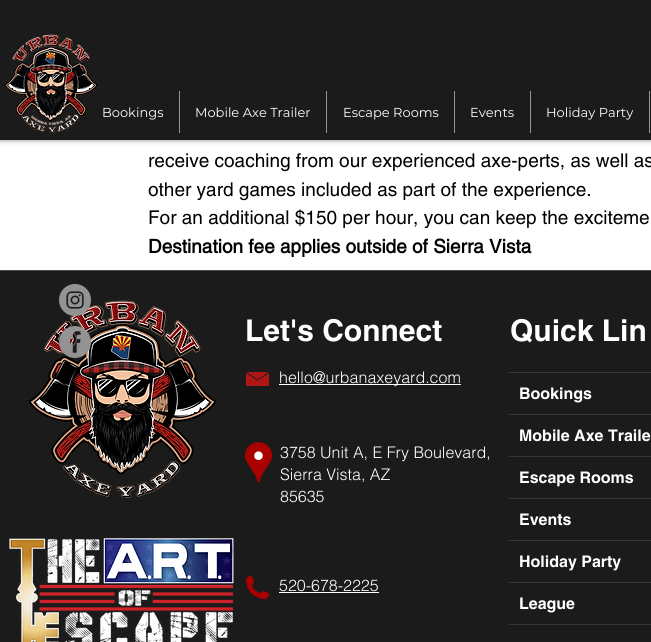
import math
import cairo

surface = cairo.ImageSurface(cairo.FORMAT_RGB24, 651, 642)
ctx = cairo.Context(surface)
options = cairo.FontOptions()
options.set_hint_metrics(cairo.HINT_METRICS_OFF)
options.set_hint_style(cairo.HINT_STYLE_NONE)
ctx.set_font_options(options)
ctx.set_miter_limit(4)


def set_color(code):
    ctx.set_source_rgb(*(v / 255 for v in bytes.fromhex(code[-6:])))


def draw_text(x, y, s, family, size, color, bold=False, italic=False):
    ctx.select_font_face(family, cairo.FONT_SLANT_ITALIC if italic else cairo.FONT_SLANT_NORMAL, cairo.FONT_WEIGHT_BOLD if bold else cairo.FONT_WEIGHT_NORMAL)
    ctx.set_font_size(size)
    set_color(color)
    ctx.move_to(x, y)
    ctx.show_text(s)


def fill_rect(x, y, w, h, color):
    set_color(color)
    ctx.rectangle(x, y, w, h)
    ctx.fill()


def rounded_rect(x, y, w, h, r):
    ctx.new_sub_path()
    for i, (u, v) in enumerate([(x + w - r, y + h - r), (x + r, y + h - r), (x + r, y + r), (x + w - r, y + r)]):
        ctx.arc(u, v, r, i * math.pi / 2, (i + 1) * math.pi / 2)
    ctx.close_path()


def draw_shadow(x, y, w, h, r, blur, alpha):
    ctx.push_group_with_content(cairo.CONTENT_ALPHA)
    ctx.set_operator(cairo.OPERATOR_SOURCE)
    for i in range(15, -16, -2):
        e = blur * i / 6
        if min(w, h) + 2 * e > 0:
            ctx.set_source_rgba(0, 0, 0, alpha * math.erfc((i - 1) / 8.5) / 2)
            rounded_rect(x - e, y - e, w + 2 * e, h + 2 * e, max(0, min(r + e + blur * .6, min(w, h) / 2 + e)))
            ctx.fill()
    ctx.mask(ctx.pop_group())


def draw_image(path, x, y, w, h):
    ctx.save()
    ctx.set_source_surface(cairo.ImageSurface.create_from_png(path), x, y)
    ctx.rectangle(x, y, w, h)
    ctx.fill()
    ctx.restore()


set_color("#ffffff")
ctx.paint()
set_color("#000000")
draw_shadow(0, 0, 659, 140, 0, 2.5, 0.5)
fill_rect(0, 0, 651, 140, "#1b1b1b")
draw_image("assets/img1.png", 4, 34, 94, 100)
draw_text(102, 117, "Bookings", "Montserrat", 13, "#ffffff")
fill_rect(179, 91, 1, 42, "#989898")
draw_text(195, 117, "Mobile Axe Trailer", "Montserrat", 13, "#ffffff")
fill_rect(326, 91, 1, 42, "#989898")
draw_text(343, 117, "Escape Rooms", "Montserrat", 13, "#ffffff")
fill_rect(454, 91, 1, 42, "#989898")
draw_text(470, 117, "Events", "Montserrat", 13, "#ffffff")
fill_rect(530, 91, 1, 42, "#989898")
draw_text(546, 117, "Holiday Party", "Montserrat", 13, "#ffffff")
fill_rect(649, 91, 1, 42, "#989898")
draw_text(148, 167, "receive coaching from our experienced axe-perts, as well as", "helvetica", 19, "#000000")
draw_text(148, 196, "other yard games included as part of the experience.", "helvetica", 19, "#000000")
draw_text(148, 224, "For an additional $150 per hour, you can keep the exciteme", "helvetica", 19, "#000000")
draw_text(148, 253, "Destination fee applies outside of Sierra Vista", "helvetica", 19, "#000000", bold=True)
fill_rect(0, 271, 651, 371, "#1b1b1b")
draw_image("assets/img4.png", 28, 300, 189, 199)
draw_image("assets/img2.png", 59, 284, 32, 32)
draw_image("assets/img3.png", 59, 326, 32, 32)
fill_rect(0, 270, 651, 1, "#494949")
draw_image("assets/img5.png", 9, 538, 225, 104)
draw_text(245, 341, "Let's Connect", "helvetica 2", 30, "#ffffff", bold=True)
set_color("#b01616")
ctx.new_path()
ctx.move_to(257.5, 379.5)
ctx.line_to(246.5, 372)
ctx.line_to(268.5, 372)
ctx.close_path()
ctx.move_to(269, 373)
ctx.line_to(257.5, 380.5)
ctx.line_to(246, 373)
ctx.line_to(246, 386)
ctx.line_to(269, 386)
ctx.close_path()
ctx.fill()
fill_rect(279, 384, 182, 1, "#ffffff")
draw_text(279, 383, "hello@urbanaxeyard.com", "helvetica Light", 16, "#ffffff")
draw_image("assets/img6.png", 245, 442, 27, 40)
draw_text(280, 458, "3758 Unit A, E Fry Boulevard,", "helvetica Light", 16, "#ffffff")
draw_text(280, 480, "Sierra Vista, AZ", "helvetica Light", 16, "#ffffff")
draw_text(280, 502, "85635", "helvetica Light", 16, "#ffffff")
draw_image("assets/img7.png", 246, 576, 23, 23)
draw_text(279, 591, "520-678-2225", "helvetica Light", 16, "#ffffff")
fill_rect(279, 592, 100, 1, "#ffffff")
draw_text(510, 341, "Quick Lin", "helvetica 2", 30, "#ffffff", bold=True)
fill_rect(509, 372, 142, 1, "#363636")
fill_rect(509, 414, 142, 1, "#363636")
draw_text(519, 399, "Bookings", "helvetica 2", 16, "#ffffff", bold=True)
fill_rect(509, 456, 142, 1, "#363636")
draw_text(519, 441, "Mobile Axe Traile", "helvetica 2", 16, "#ffffff", bold=True)
fill_rect(509, 498, 142, 1, "#363636")
draw_text(519, 483, "Escape Rooms", "helvetica 2", 16, "#ffffff", bold=True)
fill_rect(509, 540, 142, 1, "#363636")
draw_text(519, 525, "Events", "helvetica 2", 16, "#ffffff", bold=True)
fill_rect(509, 582, 142, 1, "#363636")
draw_text(519, 567, "Holiday Party", "helvetica 2", 16, "#ffffff", bold=True)
fill_rect(509, 624, 142, 1, "#363636")
draw_text(519, 609, "League", "helvetica 2", 16, "#ffffff", bold=True)
fill_rect(650, 446, 1, 1, "#21201d")
surface.write_to_png("output.png")
